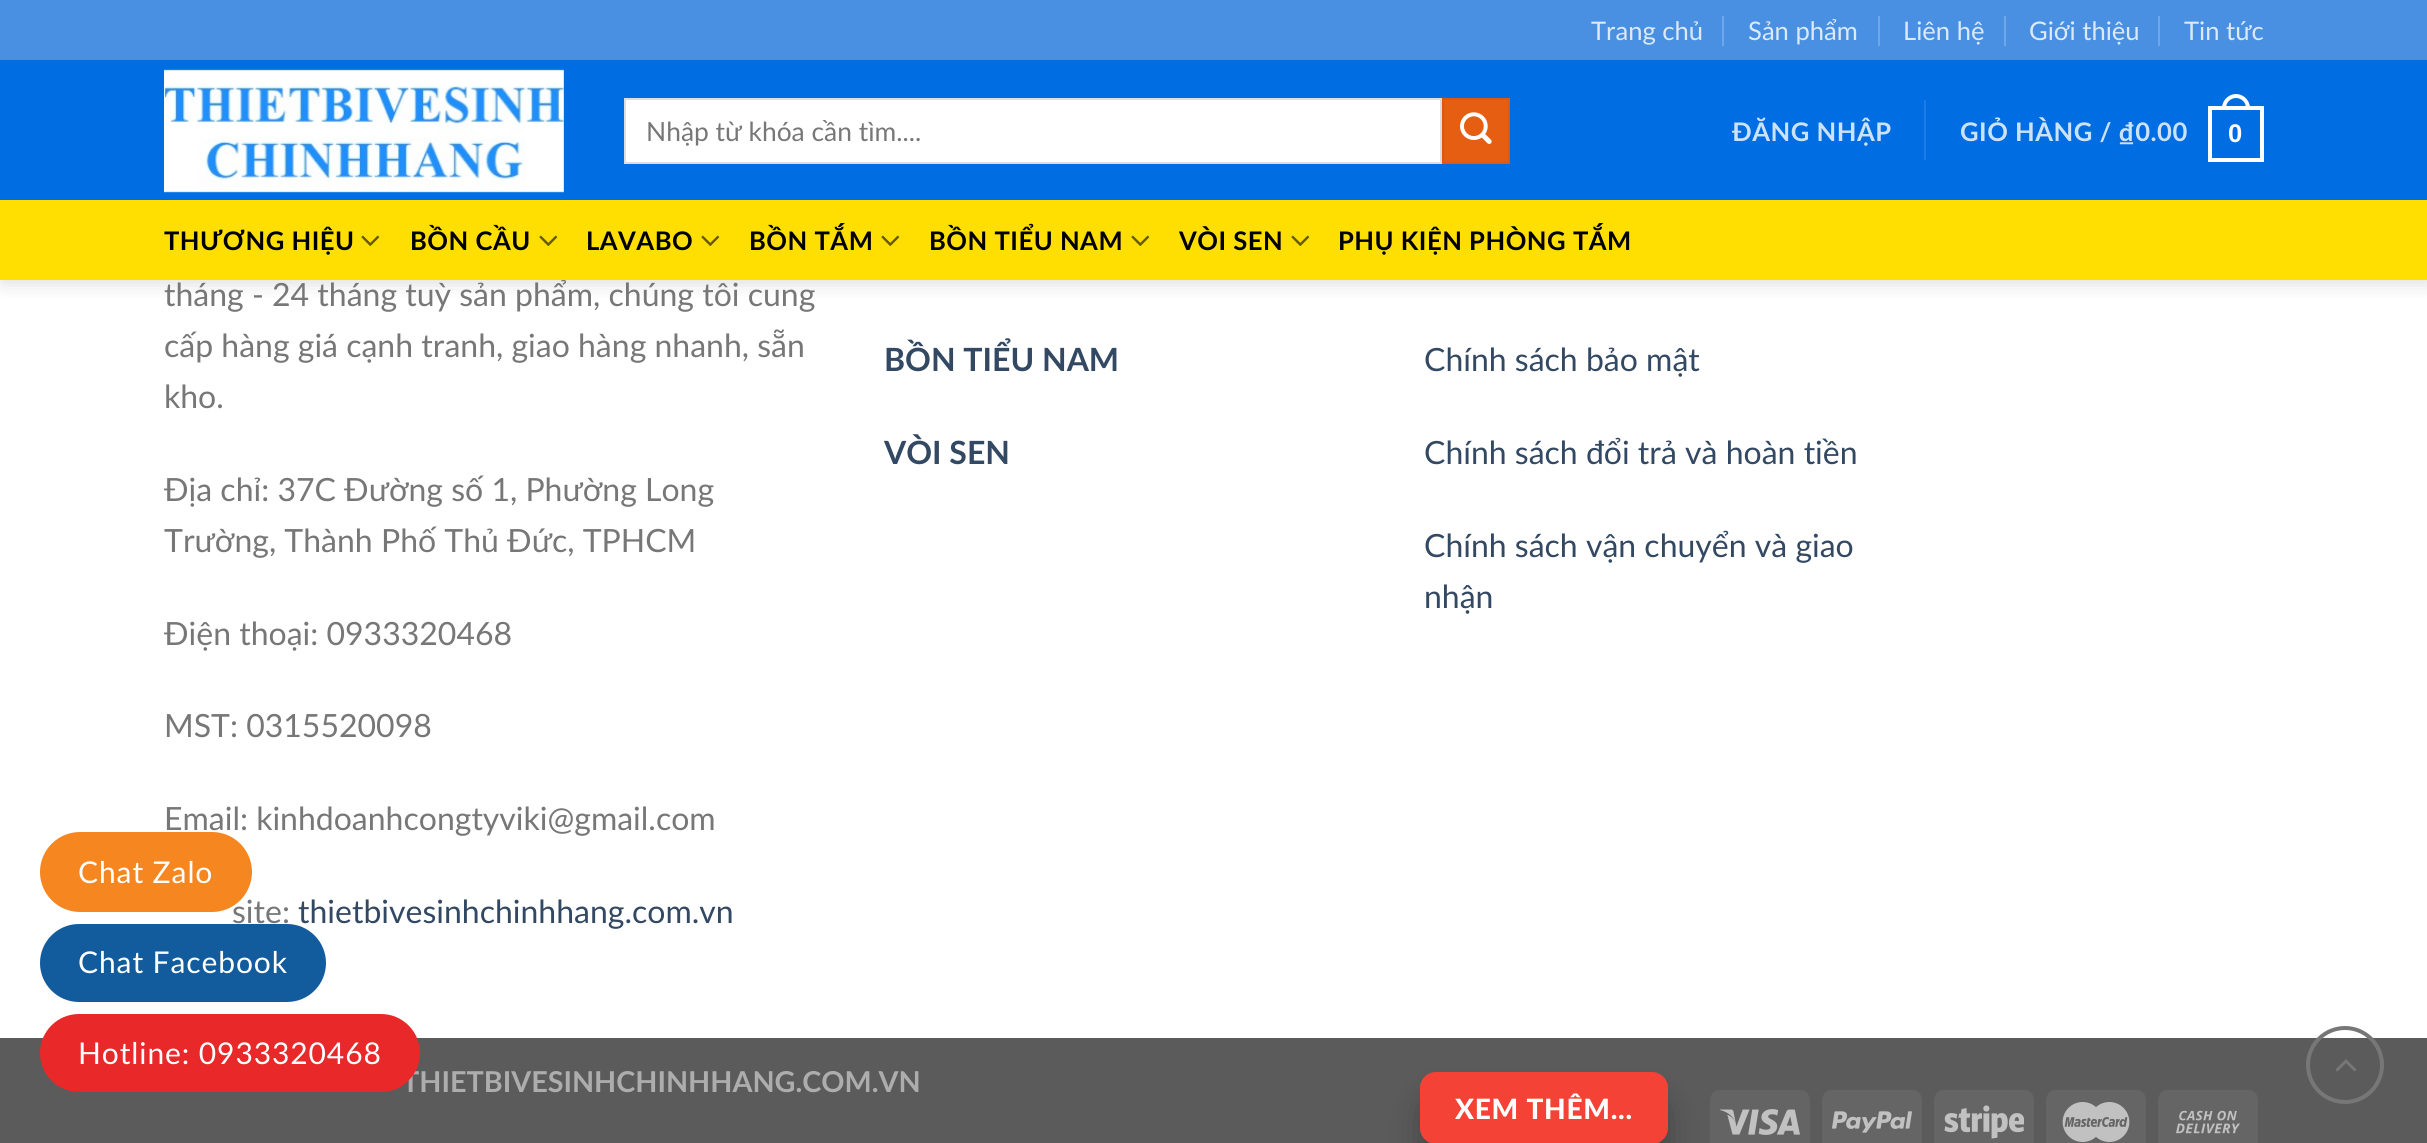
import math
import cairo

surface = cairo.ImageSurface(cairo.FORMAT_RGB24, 2427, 1143)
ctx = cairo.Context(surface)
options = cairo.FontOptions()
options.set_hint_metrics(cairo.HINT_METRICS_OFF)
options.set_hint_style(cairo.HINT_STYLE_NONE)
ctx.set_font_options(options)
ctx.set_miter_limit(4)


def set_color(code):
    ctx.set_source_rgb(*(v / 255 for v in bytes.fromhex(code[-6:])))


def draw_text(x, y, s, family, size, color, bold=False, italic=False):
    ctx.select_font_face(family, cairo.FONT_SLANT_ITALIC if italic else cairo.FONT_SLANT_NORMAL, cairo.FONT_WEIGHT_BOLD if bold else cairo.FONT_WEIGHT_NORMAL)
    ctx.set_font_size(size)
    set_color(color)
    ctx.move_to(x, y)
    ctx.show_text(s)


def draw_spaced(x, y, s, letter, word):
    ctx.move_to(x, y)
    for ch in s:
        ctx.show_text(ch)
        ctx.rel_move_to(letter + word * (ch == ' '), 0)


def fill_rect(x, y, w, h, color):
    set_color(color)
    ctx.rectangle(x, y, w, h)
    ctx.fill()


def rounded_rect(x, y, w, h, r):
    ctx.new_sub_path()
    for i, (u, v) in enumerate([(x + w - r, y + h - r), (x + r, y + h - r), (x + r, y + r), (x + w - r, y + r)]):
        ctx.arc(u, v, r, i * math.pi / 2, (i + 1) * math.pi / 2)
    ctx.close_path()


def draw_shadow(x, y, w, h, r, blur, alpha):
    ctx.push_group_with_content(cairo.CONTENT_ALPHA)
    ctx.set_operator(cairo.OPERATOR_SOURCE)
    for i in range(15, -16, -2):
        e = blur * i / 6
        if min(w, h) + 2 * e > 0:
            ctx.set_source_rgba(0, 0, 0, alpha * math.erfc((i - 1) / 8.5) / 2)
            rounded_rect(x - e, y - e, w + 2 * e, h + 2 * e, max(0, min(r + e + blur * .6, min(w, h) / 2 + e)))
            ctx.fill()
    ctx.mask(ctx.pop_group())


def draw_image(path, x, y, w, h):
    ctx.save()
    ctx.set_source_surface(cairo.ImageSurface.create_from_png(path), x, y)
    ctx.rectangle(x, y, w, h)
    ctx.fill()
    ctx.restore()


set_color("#ffffff")
ctx.paint()
set_color("#000000")
draw_shadow(2, 2, 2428, 280, 0, 10, 0.15)
fill_rect(0, 60, 2427, 140, "#006de2")
fill_rect(0, 0, 2427, 60, "#4a90e2")
draw_text(1591, 40, "Trang chủ", "Lato", 25.6, "#dbe9f9")
fill_rect(1722, 16, 2, 30, "#6ea6e8")
draw_text(1748, 40, "Sản phẩm", "Lato", 25.6, "#dbe9f9")
fill_rect(1878, 16, 2, 30, "#6ea6e8")
draw_text(1903, 40, "Liên hệ", "Lato", 25.6, "#dbe9f9")
fill_rect(2004, 16, 2, 30, "#6ea6e8")
draw_text(2029, 40, "Giới thiệu", "Lato", 25.6, "#dbe9f9")
fill_rect(2158, 16, 2, 30, "#6ea6e8")
draw_text(2184, 40, "Tin tức", "Lato", 25.6, "#dbe9f9")
draw_image("assets/img1.png", 164, 69, 400, 124)
set_color("#ffffff")
ctx.rectangle(625, 99, 816, 64)
ctx.fill_preserve()
set_color("#dddddd")
ctx.stroke()
draw_text(646, 141, "Nhập từ khóa cần tìm....", "Lato", 26.4, "#777777")
set_color("#e65e12")
ctx.rectangle(1443, 99, 66, 64)
ctx.fill_preserve()
set_color("#db5911")
ctx.stroke()
draw_image("assets/img2.png", 1460, 112, 32, 32)
ctx.select_font_face("Lato", cairo.FONT_SLANT_NORMAL, cairo.FONT_WEIGHT_BOLD)
ctx.set_font_size(25.6)
set_color("#cce2f9")
draw_spaced(1732, 141, "ĐĂNG NHẬP", 0.5, 0)
fill_rect(1924, 100, 2, 60, "#1a7ce5")
set_color("#cce2f9")
draw_spaced(1960, 141, "GIỎ HÀNG / ₫0.00", 0.5, 0)
ctx.rectangle(2210, 108, 52, 52)
set_color("#ffffff")
ctx.set_line_width(4)
ctx.stroke()
ctx.set_fill_rule(cairo.FILL_RULE_EVEN_ODD)
ctx.new_path()
ctx.move_to(2236, 94)
ctx.curve_to(2243.5, 94, 2250, 100.5, 2250, 108)
ctx.line_to(2250, 110)
ctx.line_to(2222, 110)
ctx.line_to(2222, 108)
ctx.curve_to(2222, 100.5, 2228.5, 94, 2236, 94)
ctx.close_path()
ctx.move_to(2236, 98)
ctx.curve_to(2241.5, 98, 2246, 102.5, 2246, 108)
ctx.line_to(2246, 110)
ctx.line_to(2226, 110)
ctx.line_to(2226, 108)
ctx.curve_to(2226, 102.5, 2230.5, 98, 2236, 98)
ctx.close_path()
ctx.fill()
ctx.select_font_face("Liberation Sans", cairo.FONT_SLANT_NORMAL, cairo.FONT_WEIGHT_BOLD)
draw_spaced(2228, 142, "0", 0.5, 0)
draw_text(164, 306, "tháng - 24 tháng tuỳ sản phẩm, chúng tôi cung", "Lato", 32, "#777777")
fill_rect(0, 200, 2427, 80, "#ffde02")
ctx.select_font_face("Lato", cairo.FONT_SLANT_NORMAL, cairo.FONT_WEIGHT_BOLD)
ctx.set_font_size(25.6)
set_color("#000000")
draw_spaced(164, 250, "THƯƠNG HIỆU", 0.5, 0)
draw_image("assets/img3.png", 361, 235, 19, 11)
draw_spaced(410, 250, "BỒN CẦU", 0.5, 0)
draw_image("assets/img3.png", 539, 235, 19, 11)
draw_spaced(586, 250, "LAVABO", 0.5, 0)
draw_image("assets/img3.png", 701, 235, 19, 11)
draw_spaced(749, 250, "BỒN TẮM", 0.5, 0)
draw_image("assets/img3.png", 881, 235, 19, 11)
draw_spaced(929, 250, "BỒN TIỂU NAM", 0.5, 0)
draw_image("assets/img3.png", 1131, 235, 19, 11)
draw_spaced(1179, 250, "VÒI SEN", 0.5, 0)
draw_image("assets/img3.png", 1291, 235, 19, 11)
draw_spaced(1338, 250, "PHỤ KIỆN PHÒNG TẮM", 0.5, 0)
draw_text(164, 357, "cấp hàng giá cạnh tranh, giao hàng nhanh, sẵn", "Lato", 32, "#777777")
draw_text(164, 408, "kho.", "Lato", 32, "#777777")
draw_text(164, 501, "Địa chỉ: 37C Đường số 1, Phường Long", "Lato", 32, "#777777")
draw_text(164, 552, "Trường, Thành Phố Thủ Đức, TPHCM", "Lato", 32, "#777777")
draw_text(164, 645, "Điện thoại: 0933320468", "Lato", 32, "#777777")
draw_text(164, 737, "MST: 0315520098", "Lato", 32, "#777777")
draw_text(164, 830, "Email: kinhdoanhcongtyviki@gmail.com", "Lato", 32, "#777777")
draw_text(232, 923, "site:", "Lato", 32, "#777777")
draw_text(298, 923, "thietbivesinhchinhhang.com.vn", "Lato", 32, "#334862")
draw_text(884, 371, "BỒN TIỂU NAM", "Lato", 32, "#334862", bold=True)
draw_text(884, 464, "VÒI SEN", "Lato", 32, "#334862", bold=True)
draw_text(1424, 371, "Chính sách bảo mật", "Lato", 32, "#334862")
draw_text(1424, 464, "Chính sách đổi trả và hoàn tiền", "Lato", 32, "#334862")
draw_text(1424, 557, "Chính sách vận chuyển và giao", "Lato", 32, "#334862")
draw_text(1424, 608, "nhận", "Lato", 32, "#334862")
fill_rect(0, 1038, 2427, 105, "#5b5b5b")
draw_text(402, 1092, "THIETBIVESINHCHINHHANG.COM.VN", "Lato", 28.75, "#adadad", bold=True)
set_color("#000000")
draw_shadow(1420, 1096, 248, 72, 16, 16, 0.24)
set_color("#f44336")
rounded_rect(1420, 1072, 248, 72, 16)
ctx.fill()
ctx.select_font_face("Lato Black")
ctx.set_font_size(28)
set_color("#ffffff")
draw_spaced(1455, 1119, "XEM THÊM...", 0.75, 0)
set_color("#646464")
rounded_rect(1710, 1090, 100, 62, 10)
ctx.fill()
draw_image("assets/img4.png", 1720, 1109, 80, 26)
set_color("#656565")
rounded_rect(1822, 1090, 100, 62, 10)
ctx.fill()
draw_image("assets/img5.png", 1832, 1111, 80, 22)
rounded_rect(1934, 1090, 100, 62, 10)
ctx.fill()
draw_image("assets/img6.png", 1944, 1105, 80, 34)
rounded_rect(2046, 1090, 100, 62, 10)
ctx.fill()
draw_image("assets/img7.png", 2062, 1102, 68, 40)
rounded_rect(2158, 1090, 100, 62, 10)
ctx.fill()
draw_image("assets/img8.png", 2176, 1110, 64, 24)
ctx.arc(2345, 1065, 37, 0, 2 * math.pi)
set_color("#777777")
ctx.stroke()
draw_image("assets/img9.png", 2335, 1059, 22, 13)
set_color("#f58620")
rounded_rect(40, 832, 212, 80, 40)
ctx.fill()
ctx.select_font_face("Lato")
ctx.set_font_size(30)
set_color("#ffffff")
draw_spaced(78, 883, "Chat Zalo", 0.9, 0)
set_color("#125c9e")
rounded_rect(40, 924, 286, 78, 39)
ctx.fill()
set_color("#ffffff")
draw_spaced(78, 973, "Chat Facebook", 0.9, 0)
set_color("#e82829")
rounded_rect(40, 1014, 380, 78, 39)
ctx.fill()
set_color("#ffffff")
draw_spaced(78, 1064, "Hotline: 0933320468", 0.9, 0)
surface.write_to_png("output.png")
